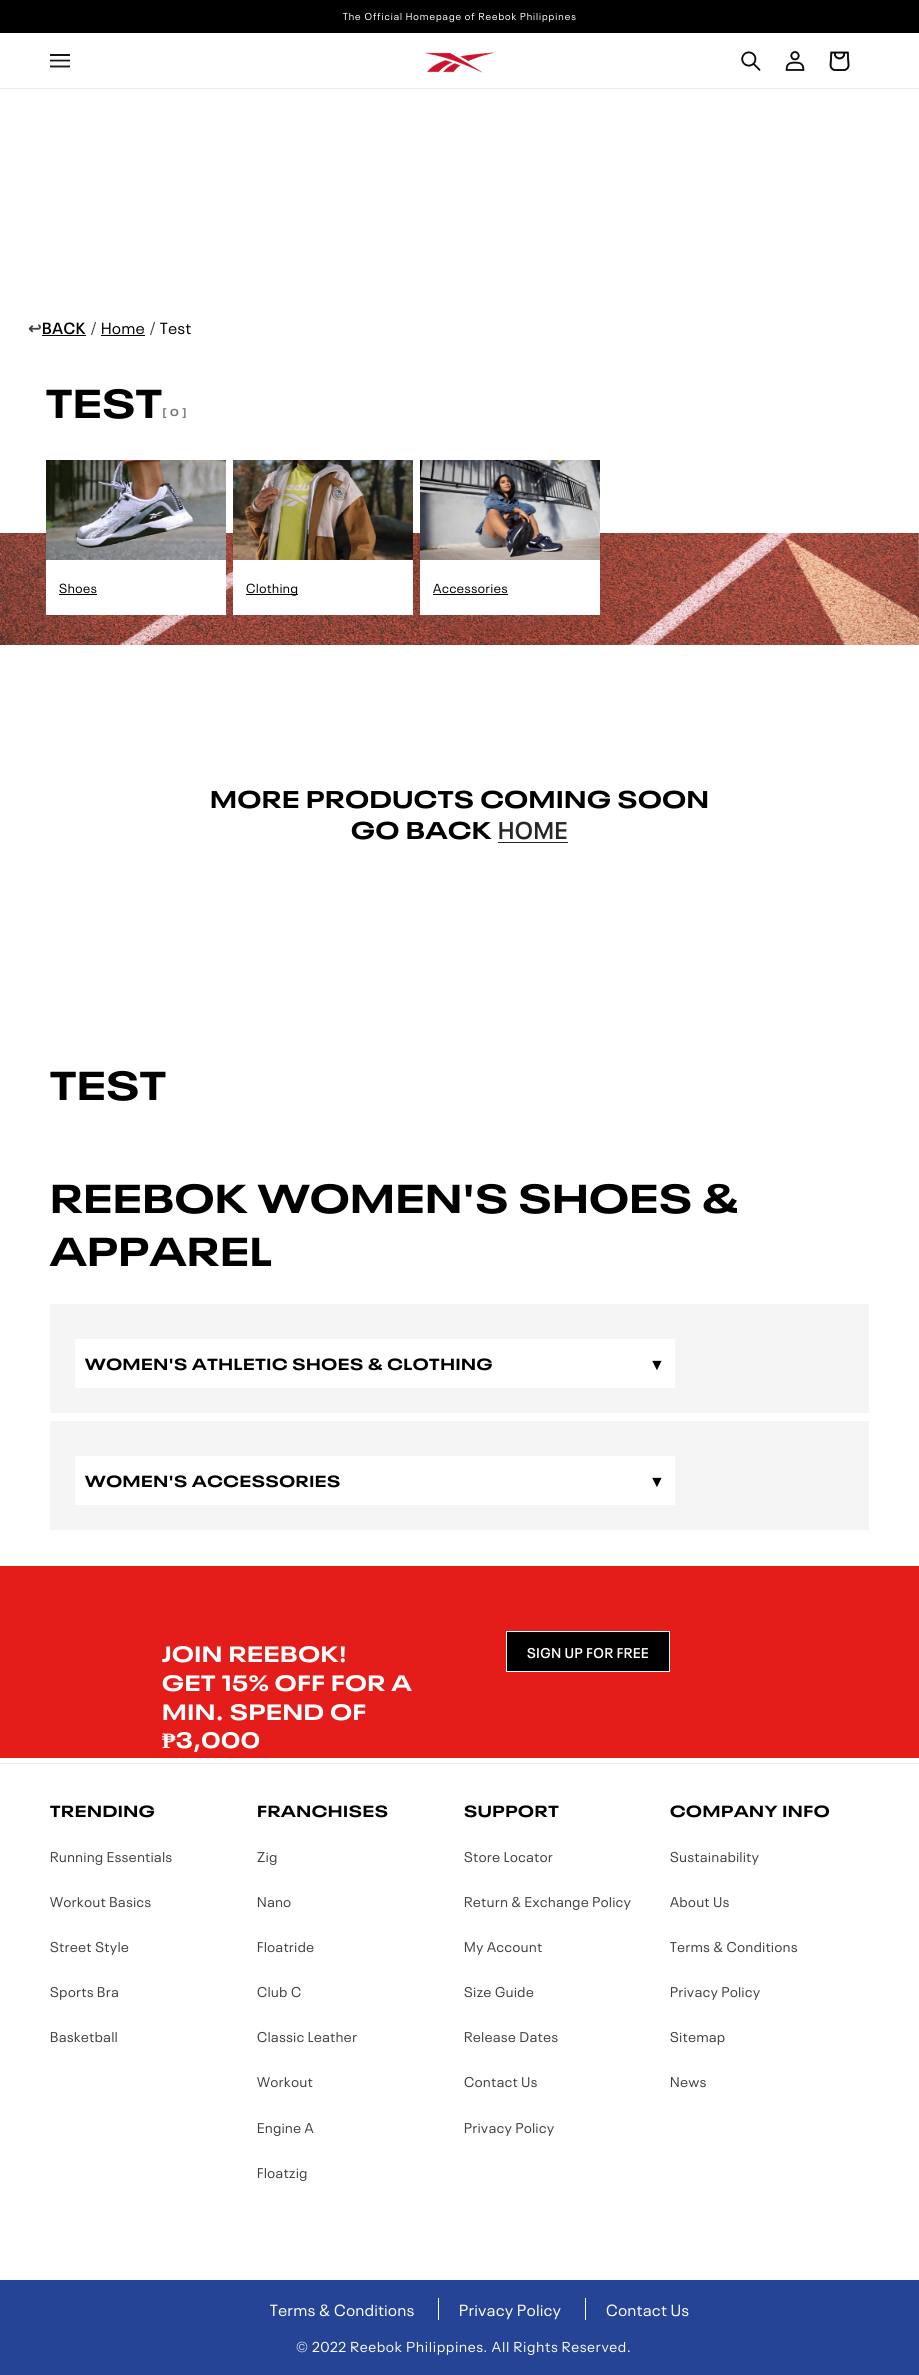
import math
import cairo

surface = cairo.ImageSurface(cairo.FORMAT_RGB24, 919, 2375)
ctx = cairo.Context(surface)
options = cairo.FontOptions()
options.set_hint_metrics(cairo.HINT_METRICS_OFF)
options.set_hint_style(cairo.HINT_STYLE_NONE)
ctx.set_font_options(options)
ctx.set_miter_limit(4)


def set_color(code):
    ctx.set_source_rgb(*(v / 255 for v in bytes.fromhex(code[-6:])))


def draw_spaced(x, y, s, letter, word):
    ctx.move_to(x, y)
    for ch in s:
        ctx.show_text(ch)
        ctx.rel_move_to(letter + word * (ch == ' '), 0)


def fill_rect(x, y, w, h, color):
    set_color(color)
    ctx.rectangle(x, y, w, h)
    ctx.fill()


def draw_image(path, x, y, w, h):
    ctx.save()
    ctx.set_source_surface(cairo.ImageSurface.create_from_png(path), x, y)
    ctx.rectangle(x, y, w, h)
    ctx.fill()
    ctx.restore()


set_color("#ffffff")
ctx.paint()
fill_rect(0, 0, 919, 33, "#000000")
ctx.select_font_face("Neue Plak")
ctx.set_font_size(10)
set_color("#ffffff")
draw_spaced(343, 20, "The Official Homepage of Reebok Philippines", 1, 0)
fill_rect(0, 88, 919, 1, "#ebebeb")
draw_image("assets/img1.png", 50, 54, 20, 14)
draw_image("assets/img2.png", 424, 52, 71, 21)
draw_image("assets/img3.png", 741, 51, 20, 20)
draw_image("assets/img4.png", 785, 51, 20, 20)
draw_image("assets/img5.png", 829, 51, 21, 20)
ctx.select_font_face("DejaVu Sans", cairo.FONT_SLANT_NORMAL, cairo.FONT_WEIGHT_BOLD)
ctx.set_font_size(16)
set_color("#404040")
draw_spaced(28, 334, "↩", 0.6, 0)
ctx.select_font_face("Neue Plak SemiBold")
set_color("#000000")
draw_spaced(42, 334, "BACK", 0.6, 0)
fill_rect(42, 335, 44, 1, "#000000")
ctx.select_font_face("Instrument Sans")
set_color("#404040")
draw_spaced(90, 334, "/", 0.6, 0)
ctx.select_font_face("Neue Plak")
set_color("#000000")
draw_spaced(101, 334, "Home", 0.6, 0)
fill_rect(101, 335, 44, 1, "#000000")
ctx.select_font_face("Instrument Sans")
set_color("#404040")
draw_spaced(149, 334, "/", 0.6, 0)
ctx.select_font_face("Neue Plak")
set_color("#000000")
draw_spaced(160, 334, "Test", 0.6, 0)
ctx.select_font_face("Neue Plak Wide", cairo.FONT_SLANT_NORMAL, cairo.FONT_WEIGHT_BOLD)
ctx.set_font_size(40)
draw_spaced(46, 418, "TEST", 0.6, 0)
ctx.set_font_size(10)
set_color("#767677")
draw_spaced(162, 416, "[ 0 ]", 0.6, 0)
draw_image("assets/img6.png", 0, 533, 919, 112)
draw_image("assets/img7.png", 46, 460, 180, 100)
fill_rect(46, 560, 180, 55, "#ffffff")
ctx.select_font_face("Neue Plak")
ctx.set_font_size(13)
set_color("#000000")
draw_spaced(59, 593, "Shoes", 0.6, 0)
fill_rect(59, 594, 38, 1, "#000000")
draw_image("assets/img8.png", 233, 460, 180, 100)
fill_rect(233, 560, 180, 55, "#ffffff")
fill_rect(246, 594, 52, 1, "#000000")
draw_spaced(246, 593, "Clothing", 0.6, 0)
draw_image("assets/img9.png", 420, 460, 180, 100)
fill_rect(420, 560, 180, 55, "#ffffff")
set_color("#000000")
draw_spaced(433, 593, "Accessories", 0.6, 0)
fill_rect(433, 594, 75, 1, "#000000")
ctx.select_font_face("Neue Plak Wide", cairo.FONT_SLANT_NORMAL, cairo.FONT_WEIGHT_BOLD)
ctx.set_font_size(24)
draw_spaced(210, 808, "MORE PRODUCTS COMING SOON", 0.6, 0)
draw_spaced(351, 839, "GO BACK", 0.6, 0)
ctx.select_font_face("Neue Plak SemiBold")
set_color("#262626")
draw_spaced(498, 839, "HOME", 0.6, 0)
fill_rect(498, 842, 70, 1, "#262626")
ctx.select_font_face("Neue Plak Wide", cairo.FONT_SLANT_NORMAL, cairo.FONT_WEIGHT_BOLD)
ctx.set_font_size(40)
set_color("#000000")
draw_spaced(50, 1100, "TEST", 0.6, 0)
draw_spaced(50, 1213, "REEBOK WOMEN'S SHOES &", 0.6, 0)
draw_spaced(50, 1266, "APPAREL", 0.6, 0)
fill_rect(50, 1304, 819, 109, "#f5f5f5")
fill_rect(75, 1339, 600, 49, "#ffffff")
ctx.set_font_size(16)
set_color("#000000")
draw_spaced(85, 1370, "WOMEN'S ATHLETIC SHOES & CLOTHING", 0.6, 0)
ctx.select_font_face("Liberation Serif", cairo.FONT_SLANT_NORMAL, cairo.FONT_WEIGHT_BOLD)
draw_spaced(649, 1370, "▼", 0.6, 0)
fill_rect(50, 1421, 819, 109, "#f5f5f5")
fill_rect(75, 1456, 600, 49, "#ffffff")
ctx.select_font_face("Neue Plak Wide", cairo.FONT_SLANT_NORMAL, cairo.FONT_WEIGHT_BOLD)
set_color("#000000")
draw_spaced(85, 1487, "WOMEN'S ACCESSORIES", 0.6, 0)
ctx.select_font_face("Liberation Serif", cairo.FONT_SLANT_NORMAL, cairo.FONT_WEIGHT_BOLD)
draw_spaced(649, 1487, "▼", 0.6, 0)
fill_rect(0, 1566, 919, 192, "#e41d1b")
ctx.select_font_face("Neue Plak Wide", cairo.FONT_SLANT_NORMAL, cairo.FONT_WEIGHT_BOLD)
ctx.set_font_size(22)
set_color("#ffffff")
draw_spaced(162, 1662, "JOIN REEBOK!", 0.6, 0)
draw_spaced(162, 1691, "GET 15% OFF FOR A", 0.6, 0)
draw_spaced(162, 1720, "MIN. SPEND OF", 0.6, 0)
ctx.select_font_face("Liberation Serif", cairo.FONT_SLANT_NORMAL, cairo.FONT_WEIGHT_BOLD)
draw_spaced(162, 1748, "₱", 0.6, 0)
ctx.select_font_face("Neue Plak Wide", cairo.FONT_SLANT_NORMAL, cairo.FONT_WEIGHT_BOLD)
draw_spaced(176, 1748, "3,000", 0.6, 0)
set_color("#000000")
ctx.rectangle(506.5, 1631.5, 163, 40)
ctx.fill_preserve()
set_color("#ffffff")
ctx.set_line_width(1)
ctx.stroke()
ctx.select_font_face("Neue Plak SemiBold")
ctx.set_font_size(14)
draw_spaced(527, 1658, "SIGN UP FOR FREE", 0.6, 0)
fill_rect(0, 1763, 919, 1, "#ebebeb")
ctx.select_font_face("Neue Plak Wide", cairo.FONT_SLANT_NORMAL, cairo.FONT_WEIGHT_BOLD)
ctx.set_font_size(16)
set_color("#000000")
draw_spaced(50, 1817, "TRENDING", 0.6, 0)
ctx.select_font_face("Neue Plak")
ctx.set_font_size(14)
set_color("#404040")
draw_spaced(50, 1862, "Running Essentials", 0.6, 0)
draw_spaced(50, 1907, "Workout Basics", 0.6, 0)
draw_spaced(50, 1952, "Street Style", 0.6, 0)
draw_spaced(50, 1997, "Sports Bra", 0.6, 0)
draw_spaced(50, 2042, "Basketball", 0.6, 0)
ctx.select_font_face("Neue Plak Wide", cairo.FONT_SLANT_NORMAL, cairo.FONT_WEIGHT_BOLD)
ctx.set_font_size(16)
set_color("#000000")
draw_spaced(257, 1817, "FRANCHISES", 0.6, 0)
ctx.select_font_face("Neue Plak")
ctx.set_font_size(14)
set_color("#404040")
draw_spaced(257, 1862, "Zig", 0.6, 0)
draw_spaced(257, 1907, "Nano", 0.6, 0)
draw_spaced(257, 1952, "Floatride", 0.6, 0)
draw_spaced(257, 1997, "Club C", 0.6, 0)
draw_spaced(257, 2042, "Classic Leather", 0.6, 0)
draw_spaced(257, 2087, "Workout", 0.6, 0)
draw_spaced(257, 2133, "Engine A", 0.6, 0)
draw_spaced(257, 2178, "Floatzig", 0.6, 0)
ctx.select_font_face("Neue Plak Wide", cairo.FONT_SLANT_NORMAL, cairo.FONT_WEIGHT_BOLD)
ctx.set_font_size(16)
set_color("#000000")
draw_spaced(464, 1817, "SUPPORT", 0.6, 0)
ctx.select_font_face("Neue Plak")
ctx.set_font_size(14)
set_color("#404040")
draw_spaced(464, 1862, "Store Locator", 0.6, 0)
draw_spaced(464, 1907, "Return & Exchange Policy", 0.6, 0)
draw_spaced(464, 1952, "My Account", 0.6, 0)
draw_spaced(464, 1997, "Size Guide", 0.6, 0)
draw_spaced(464, 2042, "Release Dates", 0.6, 0)
draw_spaced(464, 2087, "Contact Us", 0.6, 0)
draw_spaced(464, 2133, "Privacy Policy", 0.6, 0)
ctx.select_font_face("Neue Plak Wide", cairo.FONT_SLANT_NORMAL, cairo.FONT_WEIGHT_BOLD)
ctx.set_font_size(16)
set_color("#000000")
draw_spaced(670, 1817, "COMPANY INFO", 0.6, 0)
ctx.select_font_face("Neue Plak")
ctx.set_font_size(14)
set_color("#404040")
draw_spaced(670, 1862, "Sustainability", 0.6, 0)
draw_spaced(670, 1907, "About Us", 0.6, 0)
draw_spaced(670, 1952, "Terms & Conditions", 0.6, 0)
draw_spaced(670, 1997, "Privacy Policy", 0.6, 0)
draw_spaced(670, 2042, "Sitemap", 0.6, 0)
draw_spaced(670, 2087, "News", 0.6, 0)
fill_rect(0, 2280, 919, 95, "#254496")
ctx.set_font_size(16)
set_color("#ffffff")
draw_spaced(270, 2316, "Terms & Conditions", 0.6, 0)
fill_rect(438, 2298, 1, 22, "#ffffff")
draw_spaced(459, 2316, "Privacy Policy", 0.6, 0)
fill_rect(585, 2298, 1, 22, "#ffffff")
draw_spaced(606, 2316, "Contact Us", 0.6, 0)
ctx.select_font_face("Instrument Sans")
ctx.set_font_size(14)
draw_spaced(296, 2352, "© 2022 Reebok Philippines. All Rights Reserved.", 0.6, 0)
surface.write_to_png("output.png")
